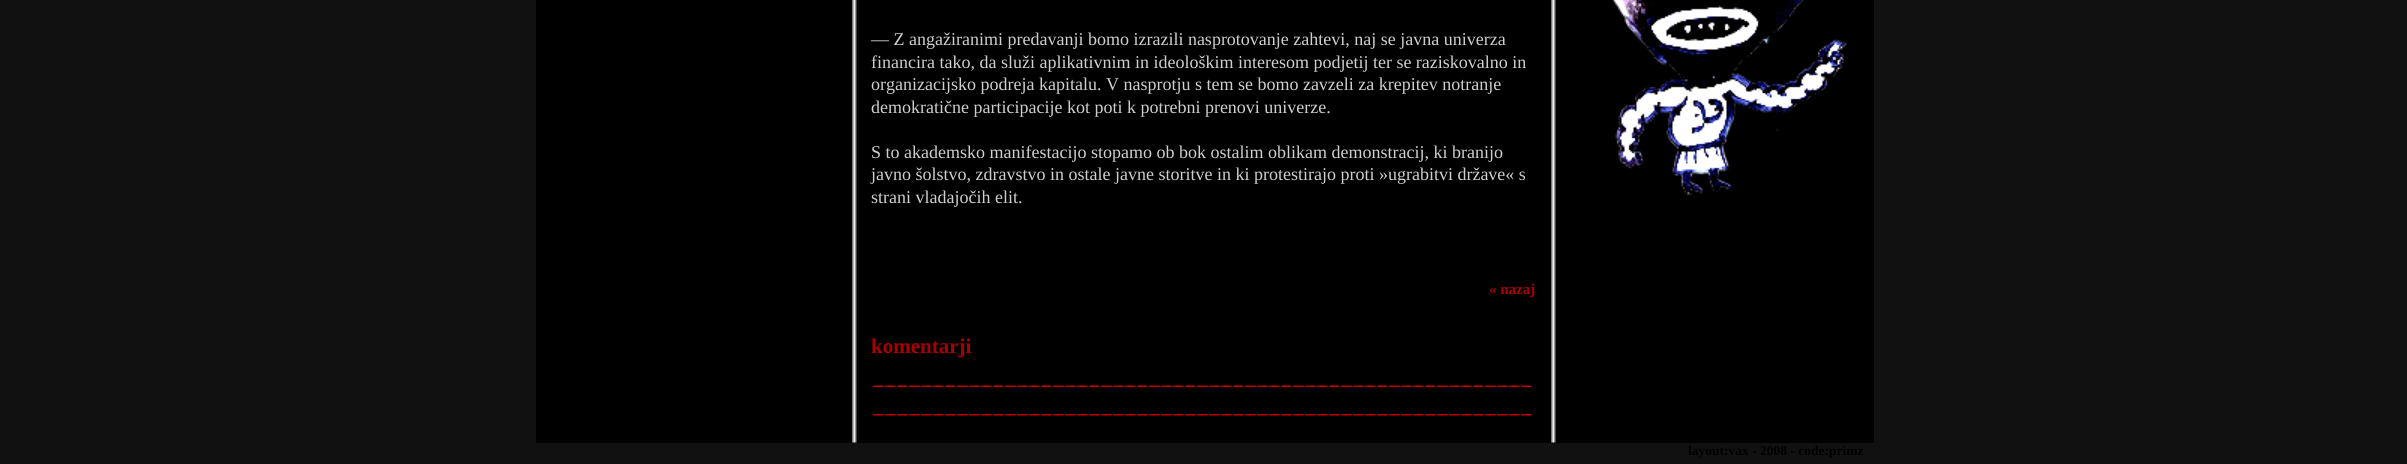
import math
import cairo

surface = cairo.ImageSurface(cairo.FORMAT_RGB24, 2407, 464)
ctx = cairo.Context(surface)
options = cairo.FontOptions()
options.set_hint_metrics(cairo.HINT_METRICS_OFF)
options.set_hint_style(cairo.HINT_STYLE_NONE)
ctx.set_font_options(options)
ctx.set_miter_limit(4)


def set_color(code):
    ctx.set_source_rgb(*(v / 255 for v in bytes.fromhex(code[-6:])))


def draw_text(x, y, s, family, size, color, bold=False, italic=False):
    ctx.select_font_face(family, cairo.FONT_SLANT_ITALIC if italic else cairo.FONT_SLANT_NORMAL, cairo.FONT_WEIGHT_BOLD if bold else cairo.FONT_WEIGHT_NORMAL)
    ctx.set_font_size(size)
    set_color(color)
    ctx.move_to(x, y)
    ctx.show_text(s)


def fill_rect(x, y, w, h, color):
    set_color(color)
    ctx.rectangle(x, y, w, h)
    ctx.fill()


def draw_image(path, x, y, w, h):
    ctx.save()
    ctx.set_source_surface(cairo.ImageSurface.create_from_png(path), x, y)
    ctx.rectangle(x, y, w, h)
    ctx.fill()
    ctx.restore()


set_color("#111111")
ctx.paint()
fill_rect(536, 0, 1338, 443, "#000000")
draw_image("assets/img1.png", 852, 0, 5, 443)
draw_text(871, 45, "— Z angažiranimi predavanji bomo izrazili nasprotovanje zahtevi, naj se javna univerza", "Liberation Serif", 18, "#cecfce")
draw_text(871, 68, "financira tako, da služi aplikativnim in ideološkim interesom podjetij ter se raziskovalno in", "Liberation Serif", 18, "#cecfce")
draw_text(871, 90, "organizacijsko podreja kapitalu. V nasprotju s tem se bomo zavzeli za krepitev notranje", "Liberation Serif", 18, "#cecfce")
draw_text(871, 113, "demokratične participacije kot poti k potrebni prenovi univerze.", "Liberation Serif", 18, "#cecfce")
draw_text(871, 158, "S to akademsko manifestacijo stopamo ob bok ostalim oblikam demonstracij, ki branijo", "Liberation Serif", 18, "#cecfce")
draw_text(871, 180, "javno šolstvo, zdravstvo in ostale javne storitve in ki protestirajo proti »ugrabitvi države« s", "Liberation Serif", 18, "#cecfce")
draw_text(871, 203, "strani vladajočih elit.", "Liberation Serif", 18, "#cecfce")
draw_text(1489, 294, "« nazaj", "Liberation Serif", 15, "#aa0000", bold=True)
draw_text(871, 353, "komentarji", "Liberation Serif", 21, "#aa0000", bold=True)
draw_image("assets/img2.png", 872, 385, 660, 2)
draw_image("assets/img3.png", 872, 414, 660, 2)
draw_image("assets/img1.png", 1551, 0, 5, 443)
draw_image("assets/img4.png", 1612, 0, 235, 196)
draw_text(1688, 455, "layout:vax - 2008 - code:primz", "Liberation Serif", 13.5, "#000000", bold=True)
surface.write_to_png("output.png")
